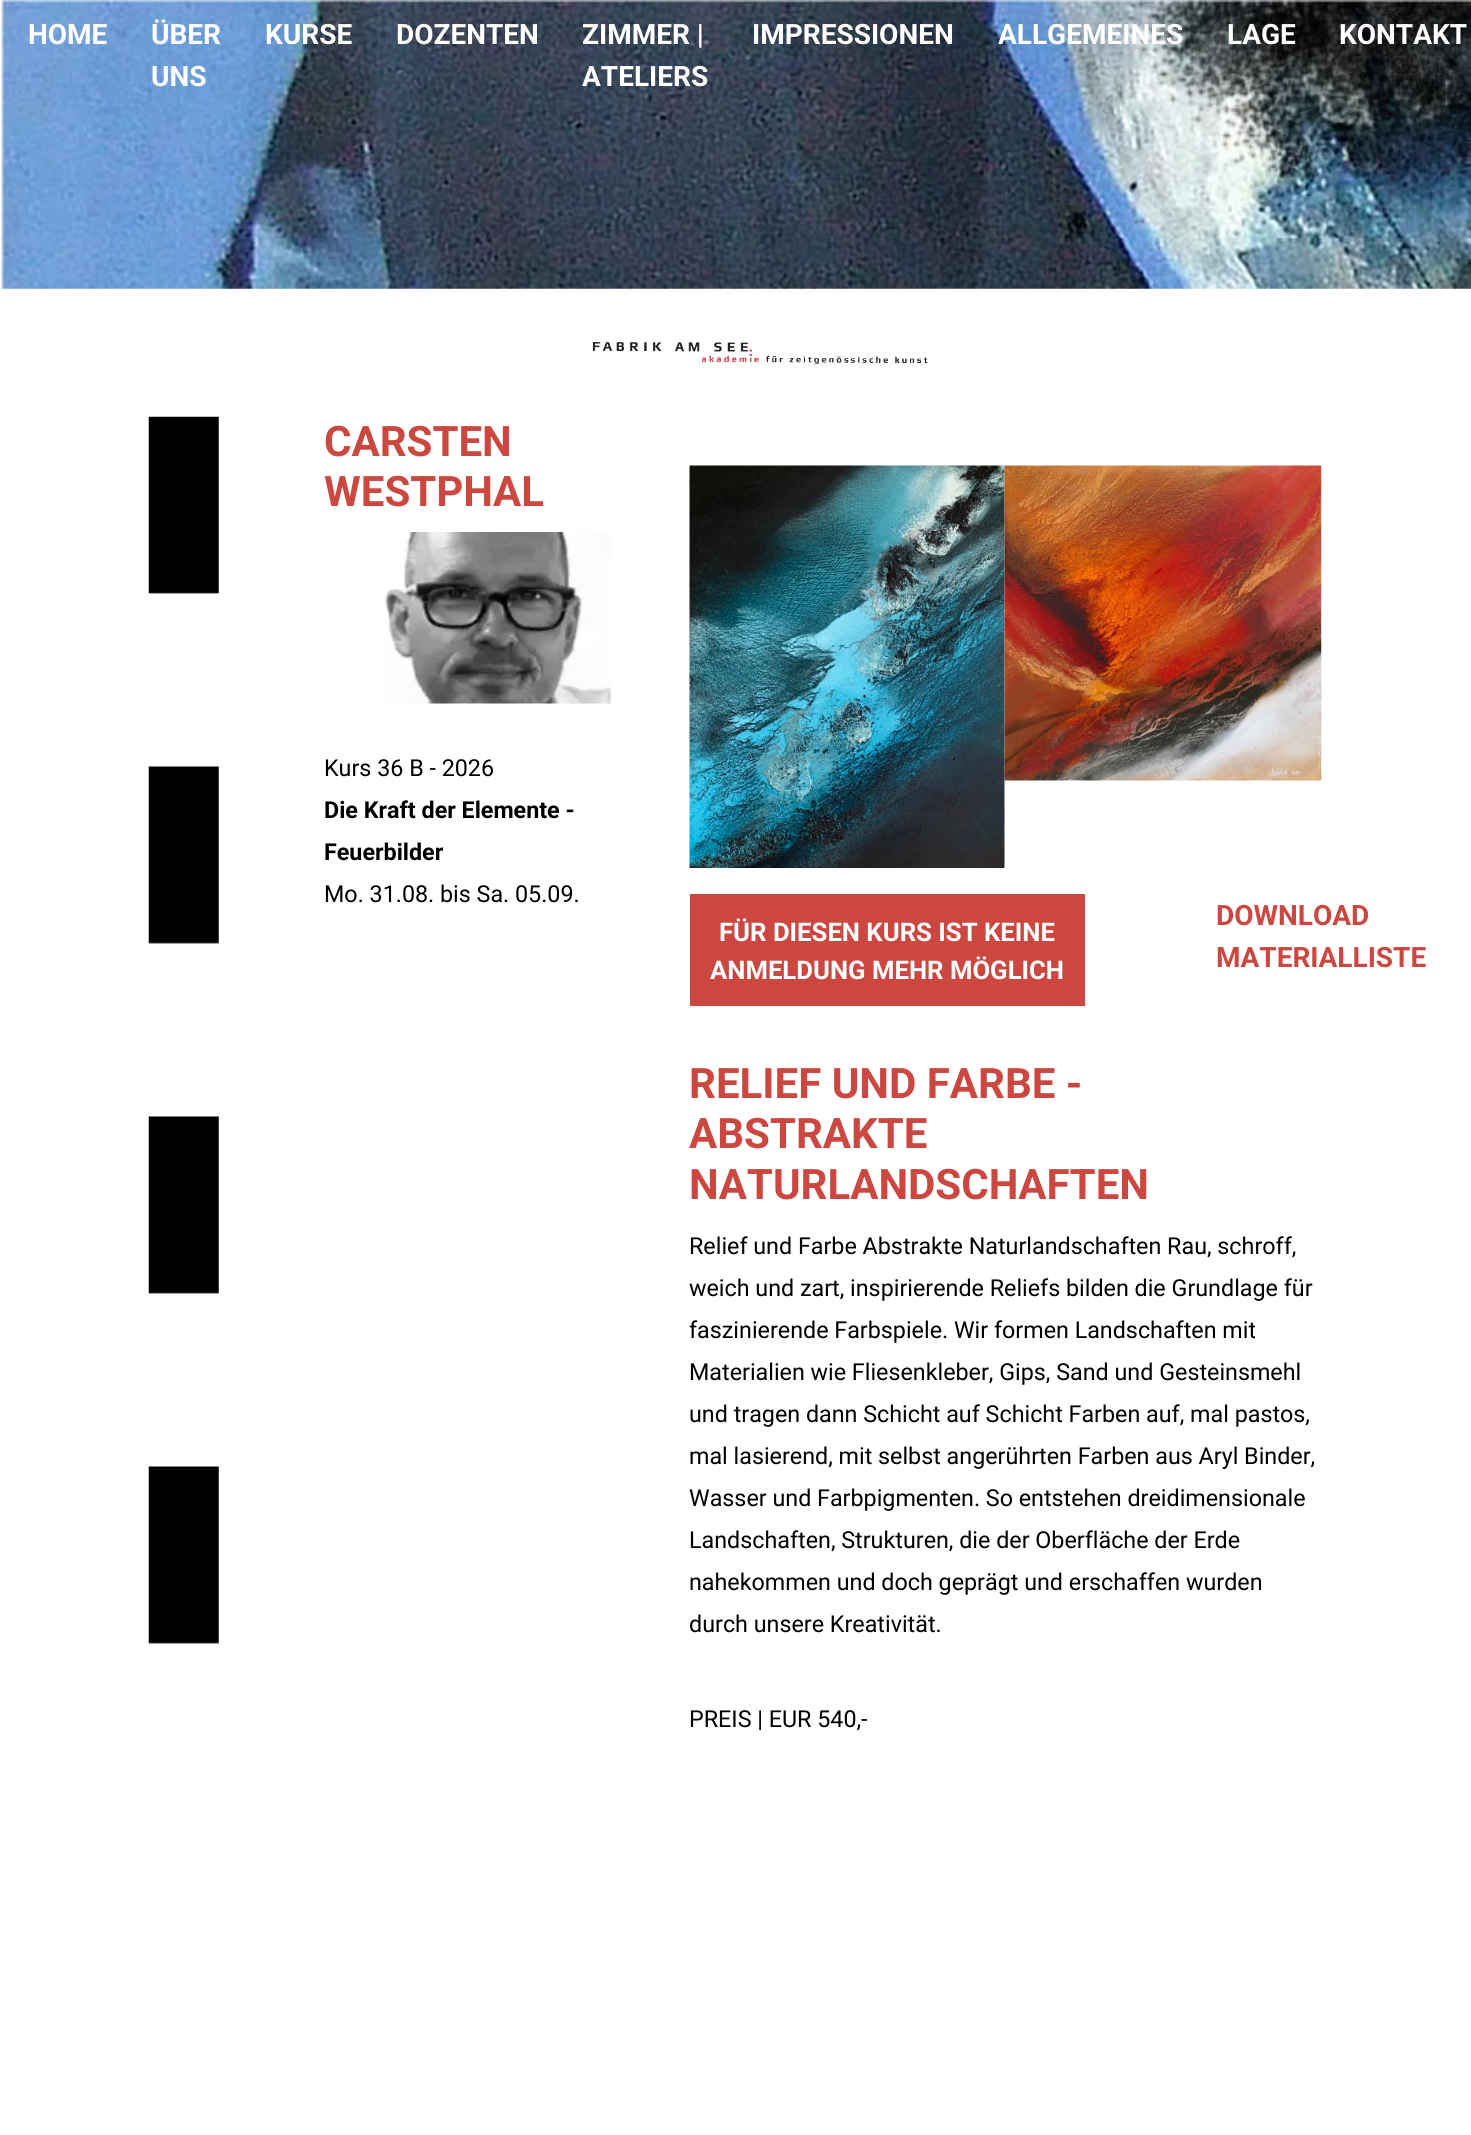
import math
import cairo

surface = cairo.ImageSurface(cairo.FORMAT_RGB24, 1471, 2135)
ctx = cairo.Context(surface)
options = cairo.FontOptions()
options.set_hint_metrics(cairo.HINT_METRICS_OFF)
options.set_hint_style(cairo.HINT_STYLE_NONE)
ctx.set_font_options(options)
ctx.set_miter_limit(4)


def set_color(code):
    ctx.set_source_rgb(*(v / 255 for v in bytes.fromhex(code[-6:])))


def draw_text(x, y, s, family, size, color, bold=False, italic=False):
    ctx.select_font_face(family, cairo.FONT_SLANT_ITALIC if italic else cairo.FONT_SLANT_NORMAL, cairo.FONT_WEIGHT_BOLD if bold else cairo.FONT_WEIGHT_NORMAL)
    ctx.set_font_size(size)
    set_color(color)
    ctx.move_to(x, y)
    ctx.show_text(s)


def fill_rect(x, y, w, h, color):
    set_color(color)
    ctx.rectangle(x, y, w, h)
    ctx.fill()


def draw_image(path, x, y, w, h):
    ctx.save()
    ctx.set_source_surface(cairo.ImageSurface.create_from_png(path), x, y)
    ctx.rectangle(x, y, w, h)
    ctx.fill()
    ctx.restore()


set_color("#ffffff")
ctx.paint()
draw_image("assets/img1.png", 1, 0, 1470, 289)
draw_text(28, 44, "HOME", "Roboto", 28, "#ffffff", bold=True)
draw_text(151, 44, "ÜBER", "Roboto", 28, "#ffffff", bold=True)
draw_text(151, 86, "UNS", "Roboto", 28, "#ffffff", bold=True)
draw_text(265, 44, "KURSE", "Roboto", 28, "#ffffff", bold=True)
draw_text(396, 44, "DOZENTEN", "Roboto", 28, "#ffffff", bold=True)
draw_text(582, 44, "ZIMMER |", "Roboto", 28, "#ffffff", bold=True)
draw_text(582, 86, "ATELIERS", "Roboto", 28, "#ffffff", bold=True)
draw_text(752, 44, "IMPRESSIONEN", "Roboto", 28, "#ffffff", bold=True)
draw_text(998, 44, "ALLGEMEINES", "Roboto", 28, "#ffffff", bold=True)
draw_text(1227, 44, "LAGE", "Roboto", 28, "#ffffff", bold=True)
draw_text(1339, 44, "KONTAKT", "Roboto", 28, "#ffffff", bold=True)
draw_image("assets/img2.png", 592, 342, 336, 22)
draw_image("assets/img3.png", 148, 416, 71, 1228)
draw_text(324, 456, "CARSTEN", "Roboto", 42, "#cb4740", bold=True)
draw_text(324, 506, "WESTPHAL", "Roboto", 42, "#cb4740", bold=True)
draw_image("assets/img4.png", 381, 532, 230, 172)
draw_text(324, 776, "Kurs 36 B - 2026", "Roboto", 23.3, "#000000")
draw_text(324, 818, "Die Kraft der Elemente -", "Roboto", 23.3, "#000000", bold=True)
draw_text(324, 860, "Feuerbilder", "Roboto", 23.3, "#000000", bold=True)
draw_text(324, 902, "Mo. 31.08. bis Sa. 05.09.", "Roboto", 23.3, "#000000")
draw_image("assets/img5.png", 689, 465, 316, 403)
draw_image("assets/img6.png", 1004, 465, 318, 316)
fill_rect(690, 894, 395, 112, "#cb4740")
draw_text(719, 941, "FÜR DIESEN KURS IST KEINE", "Roboto", 25.7, "#ffffff", bold=True)
draw_text(710, 979, "ANMELDUNG MEHR MÖGLICH", "Roboto", 25.7, "#ffffff", bold=True)
draw_text(1216, 925, "DOWNLOAD", "Roboto", 28, "#cb4740", bold=True)
draw_text(1216, 967, "MATERIALLISTE", "Roboto", 28, "#cb4740", bold=True)
draw_text(689, 1098, "RELIEF UND FARBE -", "Roboto", 42, "#cb4740", bold=True)
draw_text(689, 1148, "ABSTRAKTE", "Roboto", 42, "#cb4740", bold=True)
draw_text(689, 1199, "NATURLANDSCHAFTEN", "Roboto", 42, "#cb4740", bold=True)
draw_text(689, 1254, "Relief und Farbe Abstrakte Naturlandschaften Rau, schroff,", "Roboto", 23.3, "#000000")
draw_text(689, 1296, "weich und zart, inspirierende Reliefs bilden die Grundlage für", "Roboto", 23.3, "#000000")
draw_text(689, 1338, "faszinierende Farbspiele. Wir formen Landschaften mit", "Roboto", 23.3, "#000000")
draw_text(689, 1380, "Materialien wie Fliesenkleber, Gips, Sand und Gesteinsmehl", "Roboto", 23.3, "#000000")
draw_text(689, 1422, "und tragen dann Schicht auf Schicht Farben auf, mal pastos,", "Roboto", 23.3, "#000000")
draw_text(689, 1464, "mal lasierend, mit selbst angerührten Farben aus Aryl Binder,", "Roboto", 23.3, "#000000")
draw_text(689, 1506, "Wasser und Farbpigmenten. So entstehen dreidimensionale", "Roboto", 23.3, "#000000")
draw_text(689, 1548, "Landschaften, Strukturen, die der Oberfläche der Erde", "Roboto", 23.3, "#000000")
draw_text(689, 1590, "nahekommen und doch geprägt und erschaffen wurden", "Roboto", 23.3, "#000000")
draw_text(689, 1632, "durch unsere Kreativität.", "Roboto", 23.3, "#000000")
draw_text(689, 1727, "PREIS | EUR 540,-", "Roboto", 23.3, "#000000")
surface.write_to_png("output.png")
